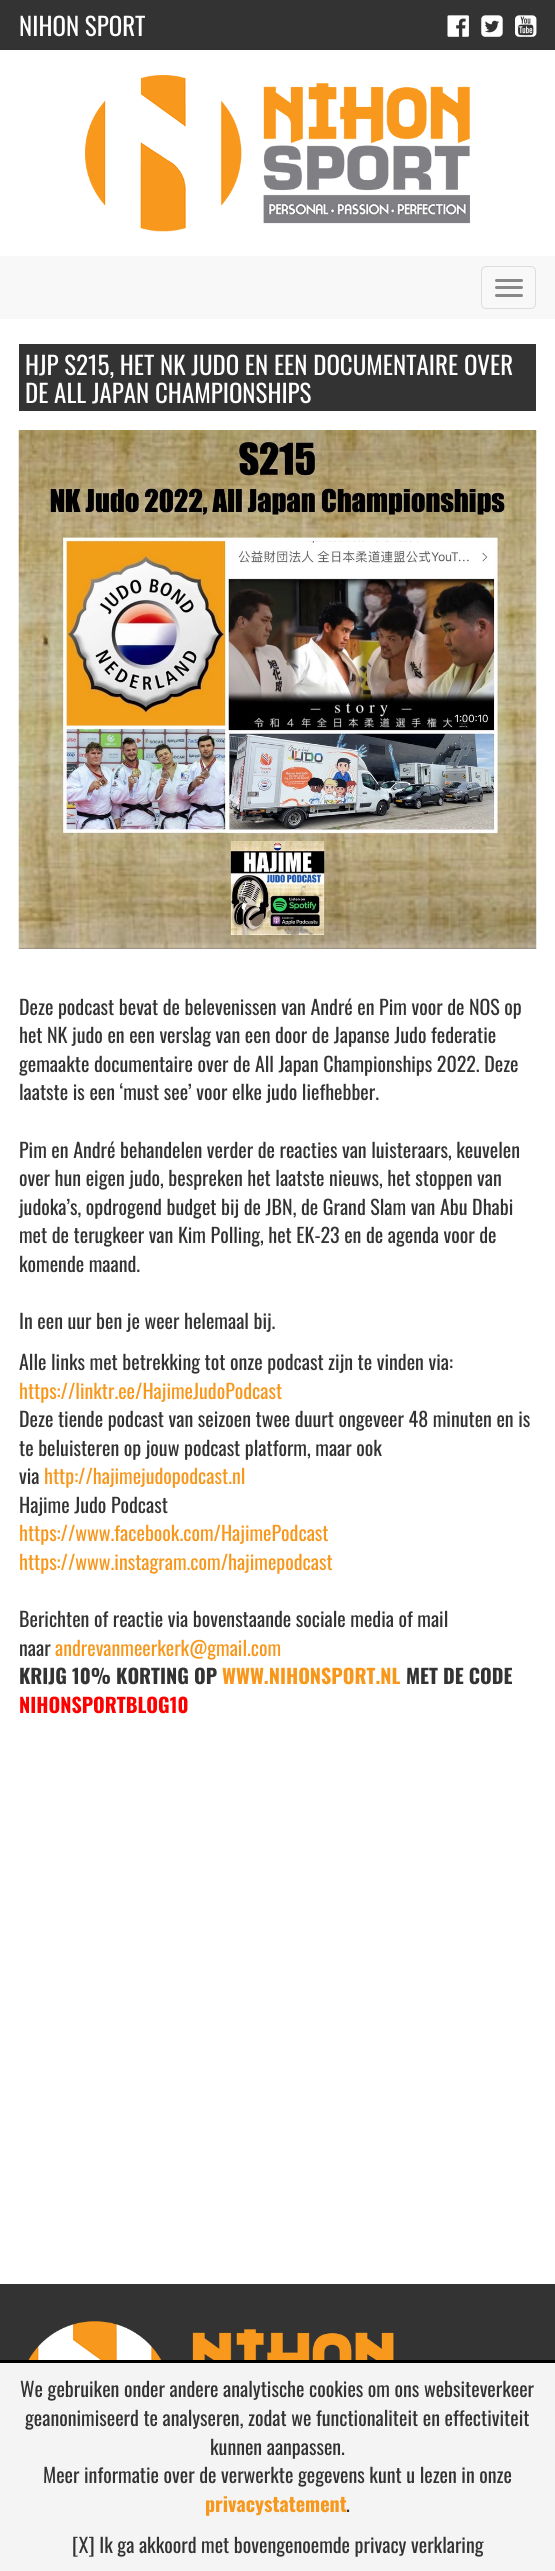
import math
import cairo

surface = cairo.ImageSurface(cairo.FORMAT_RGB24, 555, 2571)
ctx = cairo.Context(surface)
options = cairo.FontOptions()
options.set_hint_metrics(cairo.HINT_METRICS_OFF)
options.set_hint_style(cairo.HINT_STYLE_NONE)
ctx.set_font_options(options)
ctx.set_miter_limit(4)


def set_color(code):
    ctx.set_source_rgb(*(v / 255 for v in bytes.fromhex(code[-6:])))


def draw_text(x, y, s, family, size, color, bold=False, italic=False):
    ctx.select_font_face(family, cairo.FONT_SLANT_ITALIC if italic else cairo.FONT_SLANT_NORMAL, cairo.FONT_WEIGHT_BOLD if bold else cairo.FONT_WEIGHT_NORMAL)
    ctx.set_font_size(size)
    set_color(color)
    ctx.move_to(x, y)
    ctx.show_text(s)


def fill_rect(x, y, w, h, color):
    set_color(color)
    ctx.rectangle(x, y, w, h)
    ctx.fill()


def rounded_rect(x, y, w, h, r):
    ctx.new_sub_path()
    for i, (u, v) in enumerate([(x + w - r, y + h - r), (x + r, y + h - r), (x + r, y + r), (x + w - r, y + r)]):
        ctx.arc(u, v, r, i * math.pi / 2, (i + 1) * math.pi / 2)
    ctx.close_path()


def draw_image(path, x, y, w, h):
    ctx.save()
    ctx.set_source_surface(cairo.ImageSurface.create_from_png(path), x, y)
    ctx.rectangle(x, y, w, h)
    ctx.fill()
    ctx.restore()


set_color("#ffffff")
ctx.paint()
fill_rect(0, 0, 555, 50, "#333333")
draw_text(19, 36, "NIHON SPORT", "Oswald", 25, "#ffffff")
draw_image("assets/img1.png", 447, 15, 22, 22)
draw_image("assets/img2.png", 481, 15, 22, 22)
draw_image("assets/img3.png", 515, 15, 22, 22)
draw_image("assets/img4.png", 85, 75, 385, 157)
fill_rect(0, 256, 555, 63, "#f8f8f8")
rounded_rect(481.5, 266.5, 54, 42, 4.5)
set_color("#dddddd")
ctx.set_line_width(1)
ctx.stroke()
set_color("#888888")
rounded_rect(495, 279, 28, 3, 1.5)
ctx.fill()
rounded_rect(495, 286, 28, 3, 1.5)
ctx.fill()
rounded_rect(495, 294, 28, 3, 1.5)
ctx.fill()
fill_rect(19, 344, 517, 67, "#333333")
draw_text(25, 375, "HJP S215, HET NK JUDO EN EEN DOCUMENTAIRE OVER", "Oswald", 25, "#ffffff")
draw_text(25, 403, "DE ALL JAPAN CHAMPIONSHIPS", "Oswald", 25, "#ffffff")
draw_image("assets/img5.png", 18, 430, 519, 519)
draw_text(19, 1015, "Deze podcast bevat de belevenissen van André en Pim voor de NOS op", "Oswald", 20, "#333333")
draw_text(19, 1043, "het NK judo en een verslag van een door de Japanse Judo federatie", "Oswald", 20, "#333333")
draw_text(19, 1072, "gemaakte documentaire over de All Japan Championships 2022. Deze", "Oswald", 20, "#333333")
draw_text(19, 1100, "laatste is een ‘must see’ voor elke judo liefhebber.", "Oswald", 20, "#333333")
draw_text(19, 1158, "Pim en André behandelen verder de reacties van luisteraars, keuvelen", "Oswald", 20, "#333333")
draw_text(19, 1186, "over hun eigen judo, bespreken het laatste nieuws, het stoppen van", "Oswald", 20, "#333333")
draw_text(19, 1215, "judoka’s, opdrogend budget bij de JBN, de Grand Slam van Abu Dhabi", "Oswald", 20, "#333333")
draw_text(19, 1243, "met de terugkeer van Kim Polling, het EK-23 en de agenda voor de", "Oswald", 20, "#333333")
draw_text(19, 1272, "komende maand.", "Oswald", 20, "#333333")
draw_text(19, 1329, "In een uur ben je weer helemaal bij.", "Oswald", 20, "#333333")
draw_text(19, 1370, "Alle links met betrekking tot onze podcast zijn te vinden via:", "Oswald", 20, "#333333")
draw_text(19, 1399, "https://linktr.ee/HajimeJudoPodcast", "Oswald", 20, "#f7971c")
draw_text(19, 1427, "Deze tiende podcast van seizoen twee duurt ongeveer 48 minuten en is", "Oswald", 20, "#333333")
draw_text(19, 1456, "te beluisteren op jouw podcast platform, maar ook", "Oswald", 20, "#333333")
draw_text(19, 1484, "via", "Oswald", 20, "#333333")
draw_text(44, 1484, "http://hajimejudopodcast.nl", "Oswald", 20, "#f7971c")
draw_text(19, 1513, "Hajime Judo Podcast", "Oswald", 20, "#333333")
draw_text(19, 1541, "https://www.facebook.com/HajimePodcast", "Oswald", 20, "#f7971c")
draw_text(19, 1570, "https://www.instagram.com/hajimepodcast", "Oswald", 20, "#f7971c")
draw_text(19, 1627, "Berichten of reactie via bovenstaande sociale media of mail", "Oswald", 20, "#333333")
draw_text(19, 1656, "naar", "Oswald", 20, "#333333")
draw_text(55, 1656, "andrevanmeerkerk@gmail.com", "Oswald", 20, "#f7971c")
draw_text(19, 1684, "KRIJG 10% KORTING OP", "Oswald", 20, "#333333", bold=True)
draw_text(222, 1684, "WWW.NIHONSPORT.NL", "Oswald", 20, "#f7971c", bold=True)
draw_text(406, 1684, "MET DE CODE", "Oswald", 20, "#333333", bold=True)
draw_text(19, 1713, "NIHONSPORTBLOG10", "Oswald", 20, "#ff0000", bold=True)
fill_rect(0, 2284, 555, 76, "#333333")
draw_image("assets/img6.png", 28, 2321, 366, 39)
fill_rect(0, 2363, 555, 208, "#f4f4f4")
fill_rect(0, 2360, 555, 3, "#000000")
draw_text(20, 2397, "We gebruiken onder andere analytische cookies om ons websiteverkeer", "Oswald", 20, "#333333")
draw_text(25, 2426, "geanonimiseerd te analyseren, zodat we functionaliteit en effectiviteit", "Oswald", 20, "#333333")
draw_text(210, 2455, "kunnen aanpassen.", "Oswald", 20, "#333333")
draw_text(43, 2483, "Meer informatie over de verwerkte gegevens kunt u lezen in onze", "Oswald", 20, "#333333")
draw_text(205, 2512, "privacystatement", "Oswald", 20, "#f7971c", bold=True)
draw_text(346, 2512, ".", "Oswald", 20, "#333333")
draw_text(72, 2553, "[X] Ik ga akkoord met bovengenoemde privacy verklaring", "Oswald", 20, "#333333")
surface.write_to_png("output.png")
